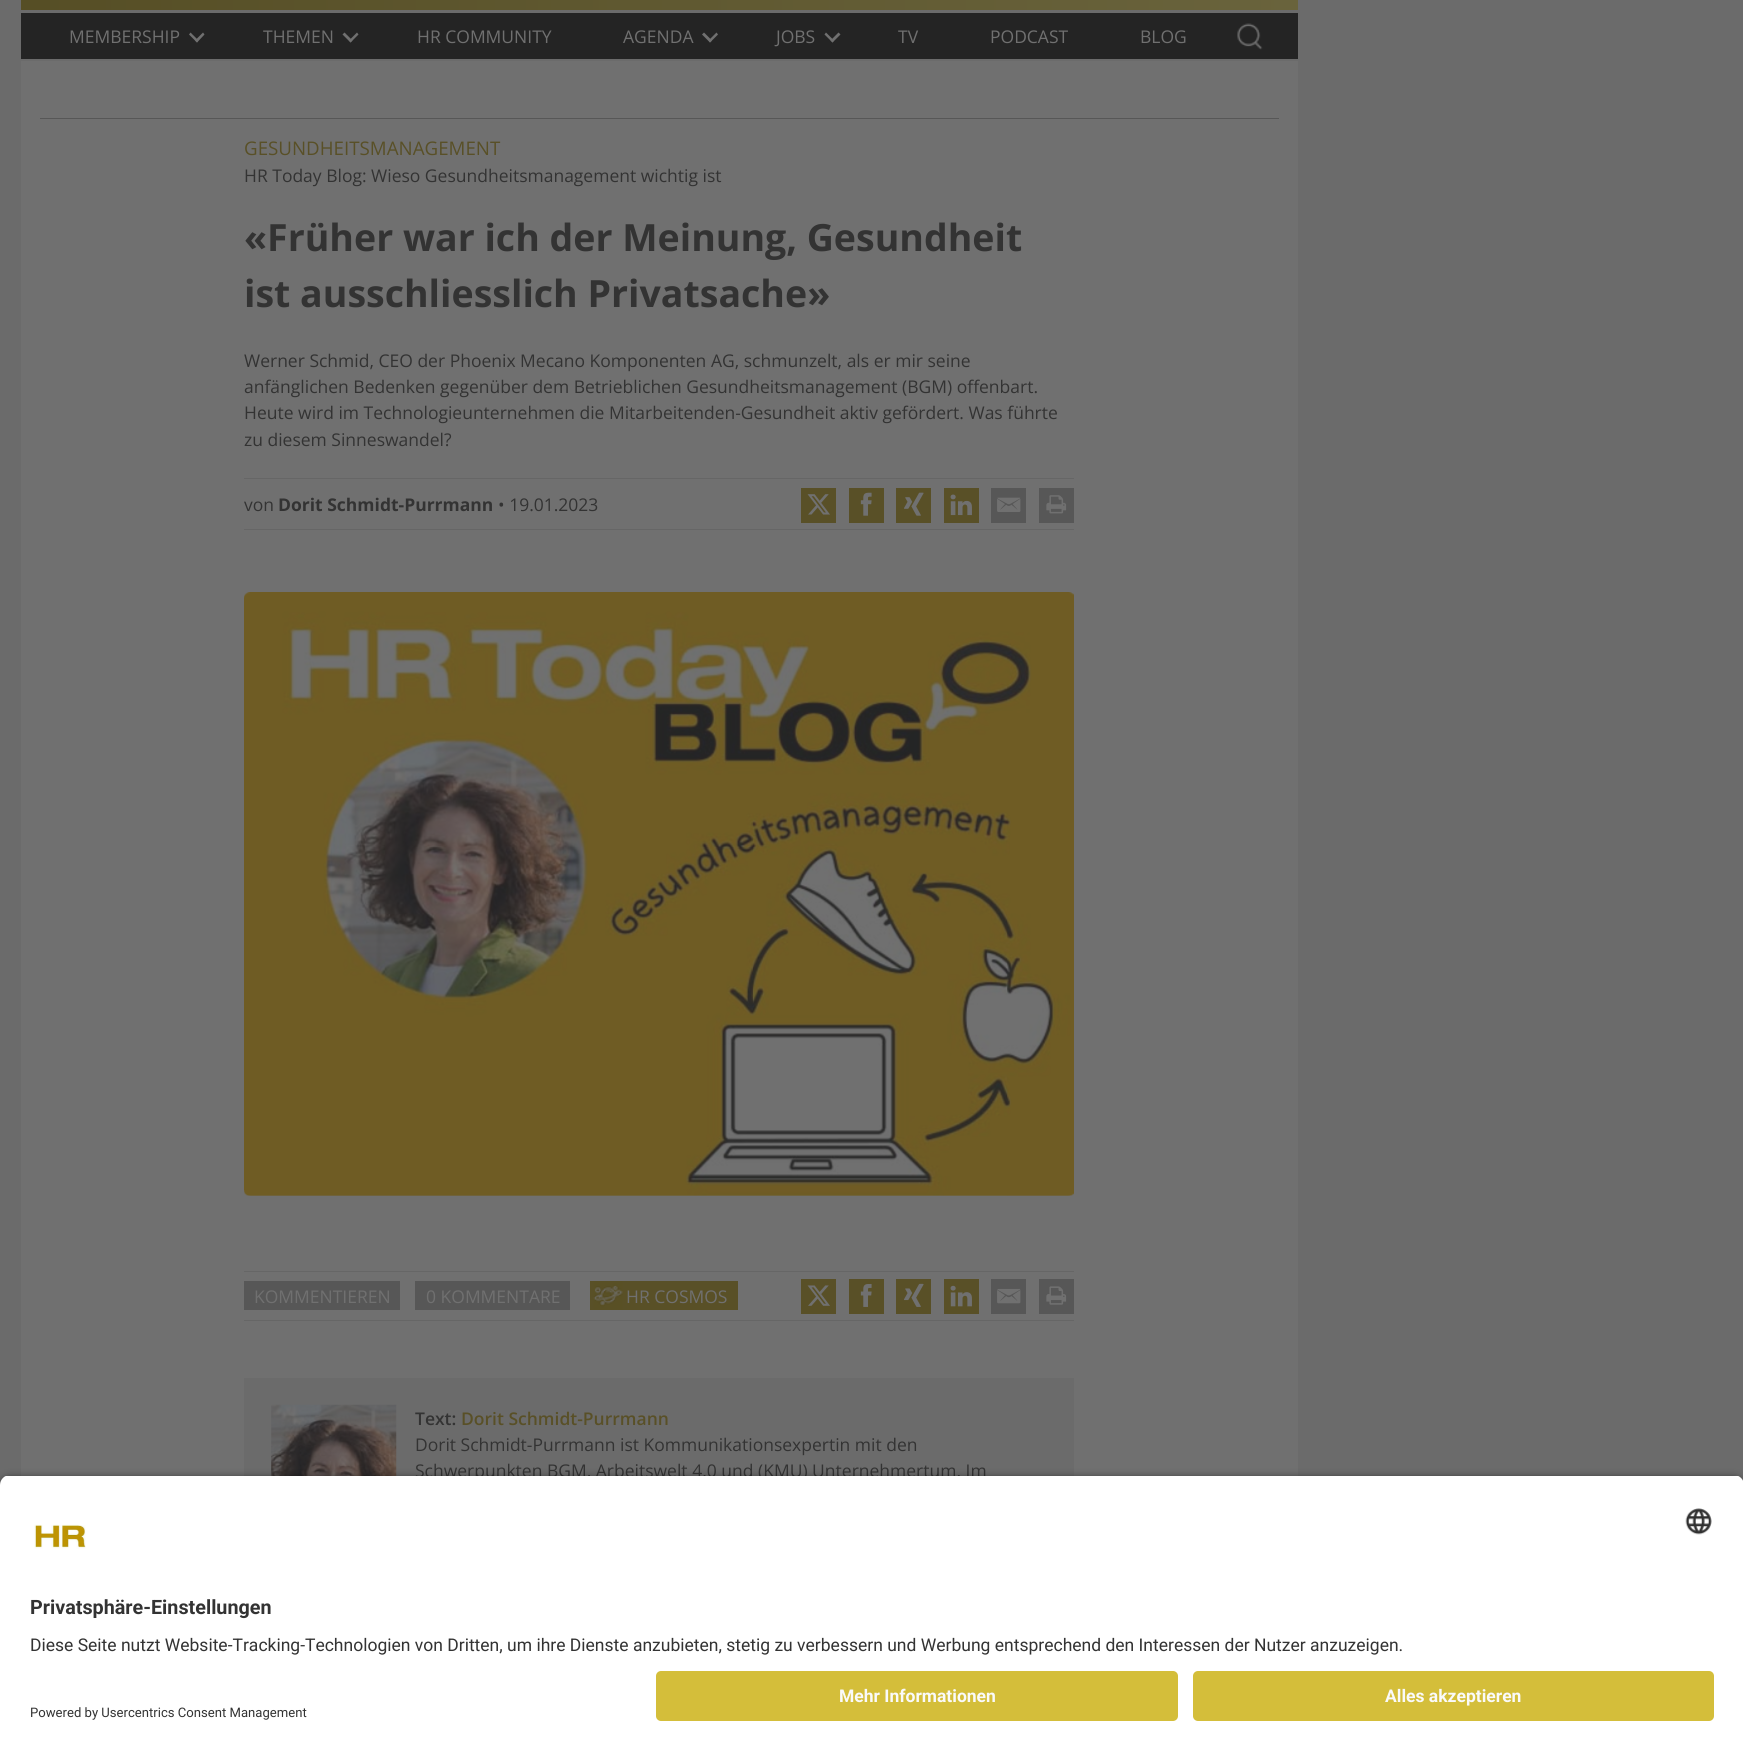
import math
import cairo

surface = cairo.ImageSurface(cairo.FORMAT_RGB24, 1743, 1751)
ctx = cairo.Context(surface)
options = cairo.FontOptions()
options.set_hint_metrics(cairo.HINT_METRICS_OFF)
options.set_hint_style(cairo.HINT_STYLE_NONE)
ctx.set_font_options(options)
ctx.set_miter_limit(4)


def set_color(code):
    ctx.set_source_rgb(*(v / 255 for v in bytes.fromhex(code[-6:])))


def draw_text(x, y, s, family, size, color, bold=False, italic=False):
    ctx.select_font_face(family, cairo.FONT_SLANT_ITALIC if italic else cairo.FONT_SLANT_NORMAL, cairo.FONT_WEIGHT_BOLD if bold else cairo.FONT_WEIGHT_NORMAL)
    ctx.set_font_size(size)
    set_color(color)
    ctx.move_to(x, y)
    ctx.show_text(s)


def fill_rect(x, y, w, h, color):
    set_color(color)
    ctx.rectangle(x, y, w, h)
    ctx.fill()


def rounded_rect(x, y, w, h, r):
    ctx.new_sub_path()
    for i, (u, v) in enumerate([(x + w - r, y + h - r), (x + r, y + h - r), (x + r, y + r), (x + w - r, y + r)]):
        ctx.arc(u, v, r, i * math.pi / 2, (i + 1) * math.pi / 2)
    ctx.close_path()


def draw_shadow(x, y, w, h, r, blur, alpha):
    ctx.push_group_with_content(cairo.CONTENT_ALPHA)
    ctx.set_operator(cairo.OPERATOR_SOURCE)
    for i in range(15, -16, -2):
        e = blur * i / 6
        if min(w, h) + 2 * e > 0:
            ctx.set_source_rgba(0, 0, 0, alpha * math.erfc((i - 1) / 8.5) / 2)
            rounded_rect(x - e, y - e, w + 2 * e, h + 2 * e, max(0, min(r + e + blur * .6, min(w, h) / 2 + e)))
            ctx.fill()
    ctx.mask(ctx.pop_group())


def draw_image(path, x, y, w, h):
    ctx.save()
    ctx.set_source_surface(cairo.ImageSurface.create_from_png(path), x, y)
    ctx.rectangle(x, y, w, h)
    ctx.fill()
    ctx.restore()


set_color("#6b6b6b")
ctx.paint()
gradient = cairo.LinearGradient(21, -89, 1298, -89)
gradient.add_color_stop_rgba(0, 0.337, 0.306, 0.145, 1)
gradient.add_color_stop_rgba(1, 0.412, 0.388, 0.235, 1)
ctx.set_source(gradient)
ctx.rectangle(21, 0, 1277, 10)
ctx.fill()
fill_rect(21, 13, 1277, 46, "#242424")
draw_text(69, 43, "MEMBERSHIP", "Open Sans", 17.5, "#707070")
ctx.new_path()
ctx.move_to(203, 32.5)
ctx.line_to(204.5, 34.5)
ctx.line_to(197, 42.5)
ctx.line_to(195, 40.5)
ctx.close_path()
ctx.fill()
ctx.new_path()
ctx.move_to(190.5, 32.5)
ctx.line_to(198.5, 40.5)
ctx.line_to(197, 42.5)
ctx.line_to(189, 34.5)
ctx.close_path()
ctx.fill()
draw_text(263, 43, "THEMEN", "Open Sans", 17.5, "#707070")
ctx.new_path()
ctx.move_to(357, 32.5)
ctx.line_to(358.5, 34.5)
ctx.line_to(350.5, 42.5)
ctx.line_to(349, 40.5)
ctx.close_path()
ctx.fill()
ctx.new_path()
ctx.move_to(344.5, 32.5)
ctx.line_to(352.5, 40.5)
ctx.line_to(350.5, 42.5)
ctx.line_to(342.5, 34.5)
ctx.close_path()
ctx.fill()
draw_text(417, 43, "HR COMMUNITY", "Open Sans", 17.5, "#707070")
draw_text(623, 43, "AGENDA", "Open Sans", 17.5, "#707070")
ctx.new_path()
ctx.move_to(716.5, 32.5)
ctx.line_to(718, 34.5)
ctx.line_to(710, 42.5)
ctx.line_to(708.5, 40.5)
ctx.close_path()
ctx.fill()
ctx.new_path()
ctx.move_to(704, 32.5)
ctx.line_to(712, 40.5)
ctx.line_to(710, 42.5)
ctx.line_to(702, 34.5)
ctx.close_path()
ctx.fill()
draw_text(776, 43, "JOBS", "Open Sans", 17.5, "#707070")
ctx.new_path()
ctx.move_to(838.5, 32.5)
ctx.line_to(840.5, 34.5)
ctx.line_to(832.5, 42.5)
ctx.line_to(830.5, 40.5)
ctx.close_path()
ctx.fill()
ctx.new_path()
ctx.move_to(826, 32.5)
ctx.line_to(834, 40.5)
ctx.line_to(832.5, 42.5)
ctx.line_to(824.5, 34.5)
ctx.close_path()
ctx.fill()
draw_text(898, 43, "TV", "Open Sans", 17.5, "#707070")
draw_text(990, 43, "PODCAST", "Open Sans", 17.5, "#707070")
draw_text(1140, 43, "BLOG", "Open Sans", 17.5, "#707070")
draw_image("assets/img1.png", 1237, 23, 26, 27)
fill_rect(21, 61, 1277, 1415, "#707070")
fill_rect(40, 118, 1239, 1, "#575757")
draw_text(244, 155, "GESUNDHEITSMANAGEMENT", "Open Sans", 18.75, "#595027")
draw_text(244, 182, "HR Today Blog: Wieso Gesundheitsmanagement wichtig ist", "Open Sans", 17.5, "#333333")
draw_text(244, 251, "«Früher war ich der Meinung, Gesundheit", "Open Sans", 37.5, "#333333", bold=True)
draw_text(244, 307, "ist ausschliesslich Privatsache»", "Open Sans", 37.5, "#333333", bold=True)
draw_text(244, 367, "Werner Schmid, CEO der Phoenix Mecano Komponenten AG, schmunzelt, als er mir seine", "Open Sans", 17.5, "#333333")
draw_text(244, 393, "anfänglichen Bedenken gegenüber dem Betrieblichen Gesundheitsmanagement (BGM) offenbart.", "Open Sans", 17.5, "#333333")
draw_text(244, 419, "Heute wird im Technologieunternehmen die Mitarbeitenden-Gesundheit aktiv gefördert. Was führte", "Open Sans", 17.5, "#333333")
draw_text(244, 446, "zu diesem Sinneswandel?", "Open Sans", 17.5, "#333333")
fill_rect(244, 478, 830, 1, "#666666")
fill_rect(244, 529, 830, 1, "#666666")
draw_text(244, 511, "von", "Open Sans", 17.5, "#333333")
draw_text(278, 511, "Dorit Schmidt-Purrmann", "Open Sans", 17.5, "#333333", bold=True)
draw_text(498, 511, "• 19.01.2023", "Open Sans", 17.5, "#333333")
fill_rect(801, 488, 35, 35, "#595027")
draw_image("assets/img2.png", 807, 494, 23, 21)
fill_rect(849, 488, 35, 35, "#595027")
draw_image("assets/img3.png", 860, 492, 12, 24)
fill_rect(896, 488, 35, 35, "#595027")
draw_image("assets/img4.png", 904, 492, 20, 24)
fill_rect(944, 488, 35, 35, "#595027")
draw_image("assets/img5.png", 950, 494, 22, 22)
fill_rect(991, 488, 35, 35, "#575757")
draw_image("assets/img6.png", 997, 497, 24, 15)
fill_rect(1039, 488, 35, 35, "#575757")
draw_image("assets/img7.png", 1046, 495, 21, 19)
draw_image("assets/img8.png", 244, 592, 830, 604)
fill_rect(244, 1271, 830, 1, "#666666")
fill_rect(244, 1320, 830, 1, "#666666")
fill_rect(244, 1281, 156, 29, "#575757")
draw_text(254, 1303, "KOMMENTIEREN", "Open Sans", 17.5, "#707070")
fill_rect(415, 1281, 155, 29, "#575757")
draw_text(426, 1303, "0 KOMMENTARE", "Open Sans", 17.5, "#707070")
fill_rect(590, 1281, 148, 29, "#595027")
draw_image("assets/img9.png", 593, 1281, 30, 29)
draw_text(626, 1303, "HR COSMOS", "Open Sans", 17.5, "#707070")
fill_rect(801, 1279, 35, 35, "#595027")
draw_image("assets/img10.png", 807, 1285, 23, 21)
fill_rect(849, 1279, 35, 35, "#595027")
draw_image("assets/img11.png", 860, 1284, 12, 23)
fill_rect(896, 1279, 35, 35, "#595027")
draw_image("assets/img12.png", 904, 1283, 20, 24)
fill_rect(944, 1279, 35, 35, "#595027")
draw_image("assets/img13.png", 950, 1285, 22, 22)
fill_rect(991, 1279, 35, 35, "#575757")
draw_image("assets/img14.png", 997, 1288, 24, 16)
fill_rect(1039, 1279, 35, 35, "#575757")
draw_image("assets/img15.png", 1046, 1286, 21, 19)
fill_rect(244, 1378, 830, 98, "#6b6b6b")
draw_image("assets/img16.png", 271, 1404, 126, 72)
draw_text(415, 1425, "Text:", "Open Sans SemiBold", 17.5, "#333333")
draw_text(461, 1425, "Dorit Schmidt-Purrmann", "Open Sans SemiBold", 17.5, "#595027")
draw_text(415, 1451, "Dorit Schmidt-Purrmann ist Kommunikationsexpertin mit den", "Open Sans", 17.5, "#333333")
draw_text(415, 1477, "Schwerpunkten BGM, Arbeitswelt 4.0 und (KMU) Unternehmertum. Im", "Open Sans", 17.5, "#333333")
set_color("#000000")
draw_shadow(0, 1479, 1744, 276, 10, 4.5, 0.8)
ctx.save()
ctx.new_path()
ctx.move_to(10, 1475)
ctx.line_to(1734, 1475)
ctx.curve_to(1739.5, 1475, 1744, 1479.5, 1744, 1485)
ctx.line_to(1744, 1661)
ctx.line_to(0, 1661)
ctx.line_to(0, 1485)
ctx.curve_to(0, 1479.5, 4.5, 1475, 10, 1475)
ctx.close_path()
ctx.clip()
fill_rect(0, 1476, 1743, 185, "#ffffff")
ctx.restore()
draw_image("assets/img17.png", 34, 1524, 52, 25)
draw_image("assets/img18.png", 1685, 1508, 27, 27)
draw_text(30, 1614, "Privatsphäre-Einstellungen", "Roboto", 19.75, "#333333", bold=True)
draw_text(30, 1651, "Diese Seite nutzt Website-Tracking-Technologien von Dritten, um ihre Dienste anzubieten, stetig zu verbessern und Werbung entsprechend den Interessen der Nutzer anzuzeigen.", "Roboto", 17.5, "#333333")
fill_rect(0, 1661, 1743, 90, "#ffffff")
set_color("#d4be3a")
rounded_rect(656, 1671, 522, 50, 5)
ctx.fill()
draw_text(839, 1702, "Mehr Informationen", "Roboto", 17.5, "#fafafa", bold=True)
set_color("#d4be3a")
rounded_rect(1193, 1671, 521, 50, 5)
ctx.fill()
draw_text(1385, 1702, "Alles akzeptieren", "Roboto", 17.5, "#fafafa", bold=True)
draw_text(30, 1717, "Powered by Usercentrics Consent Management", "Roboto", 13.1, "#333333")
surface.write_to_png("output.png")
